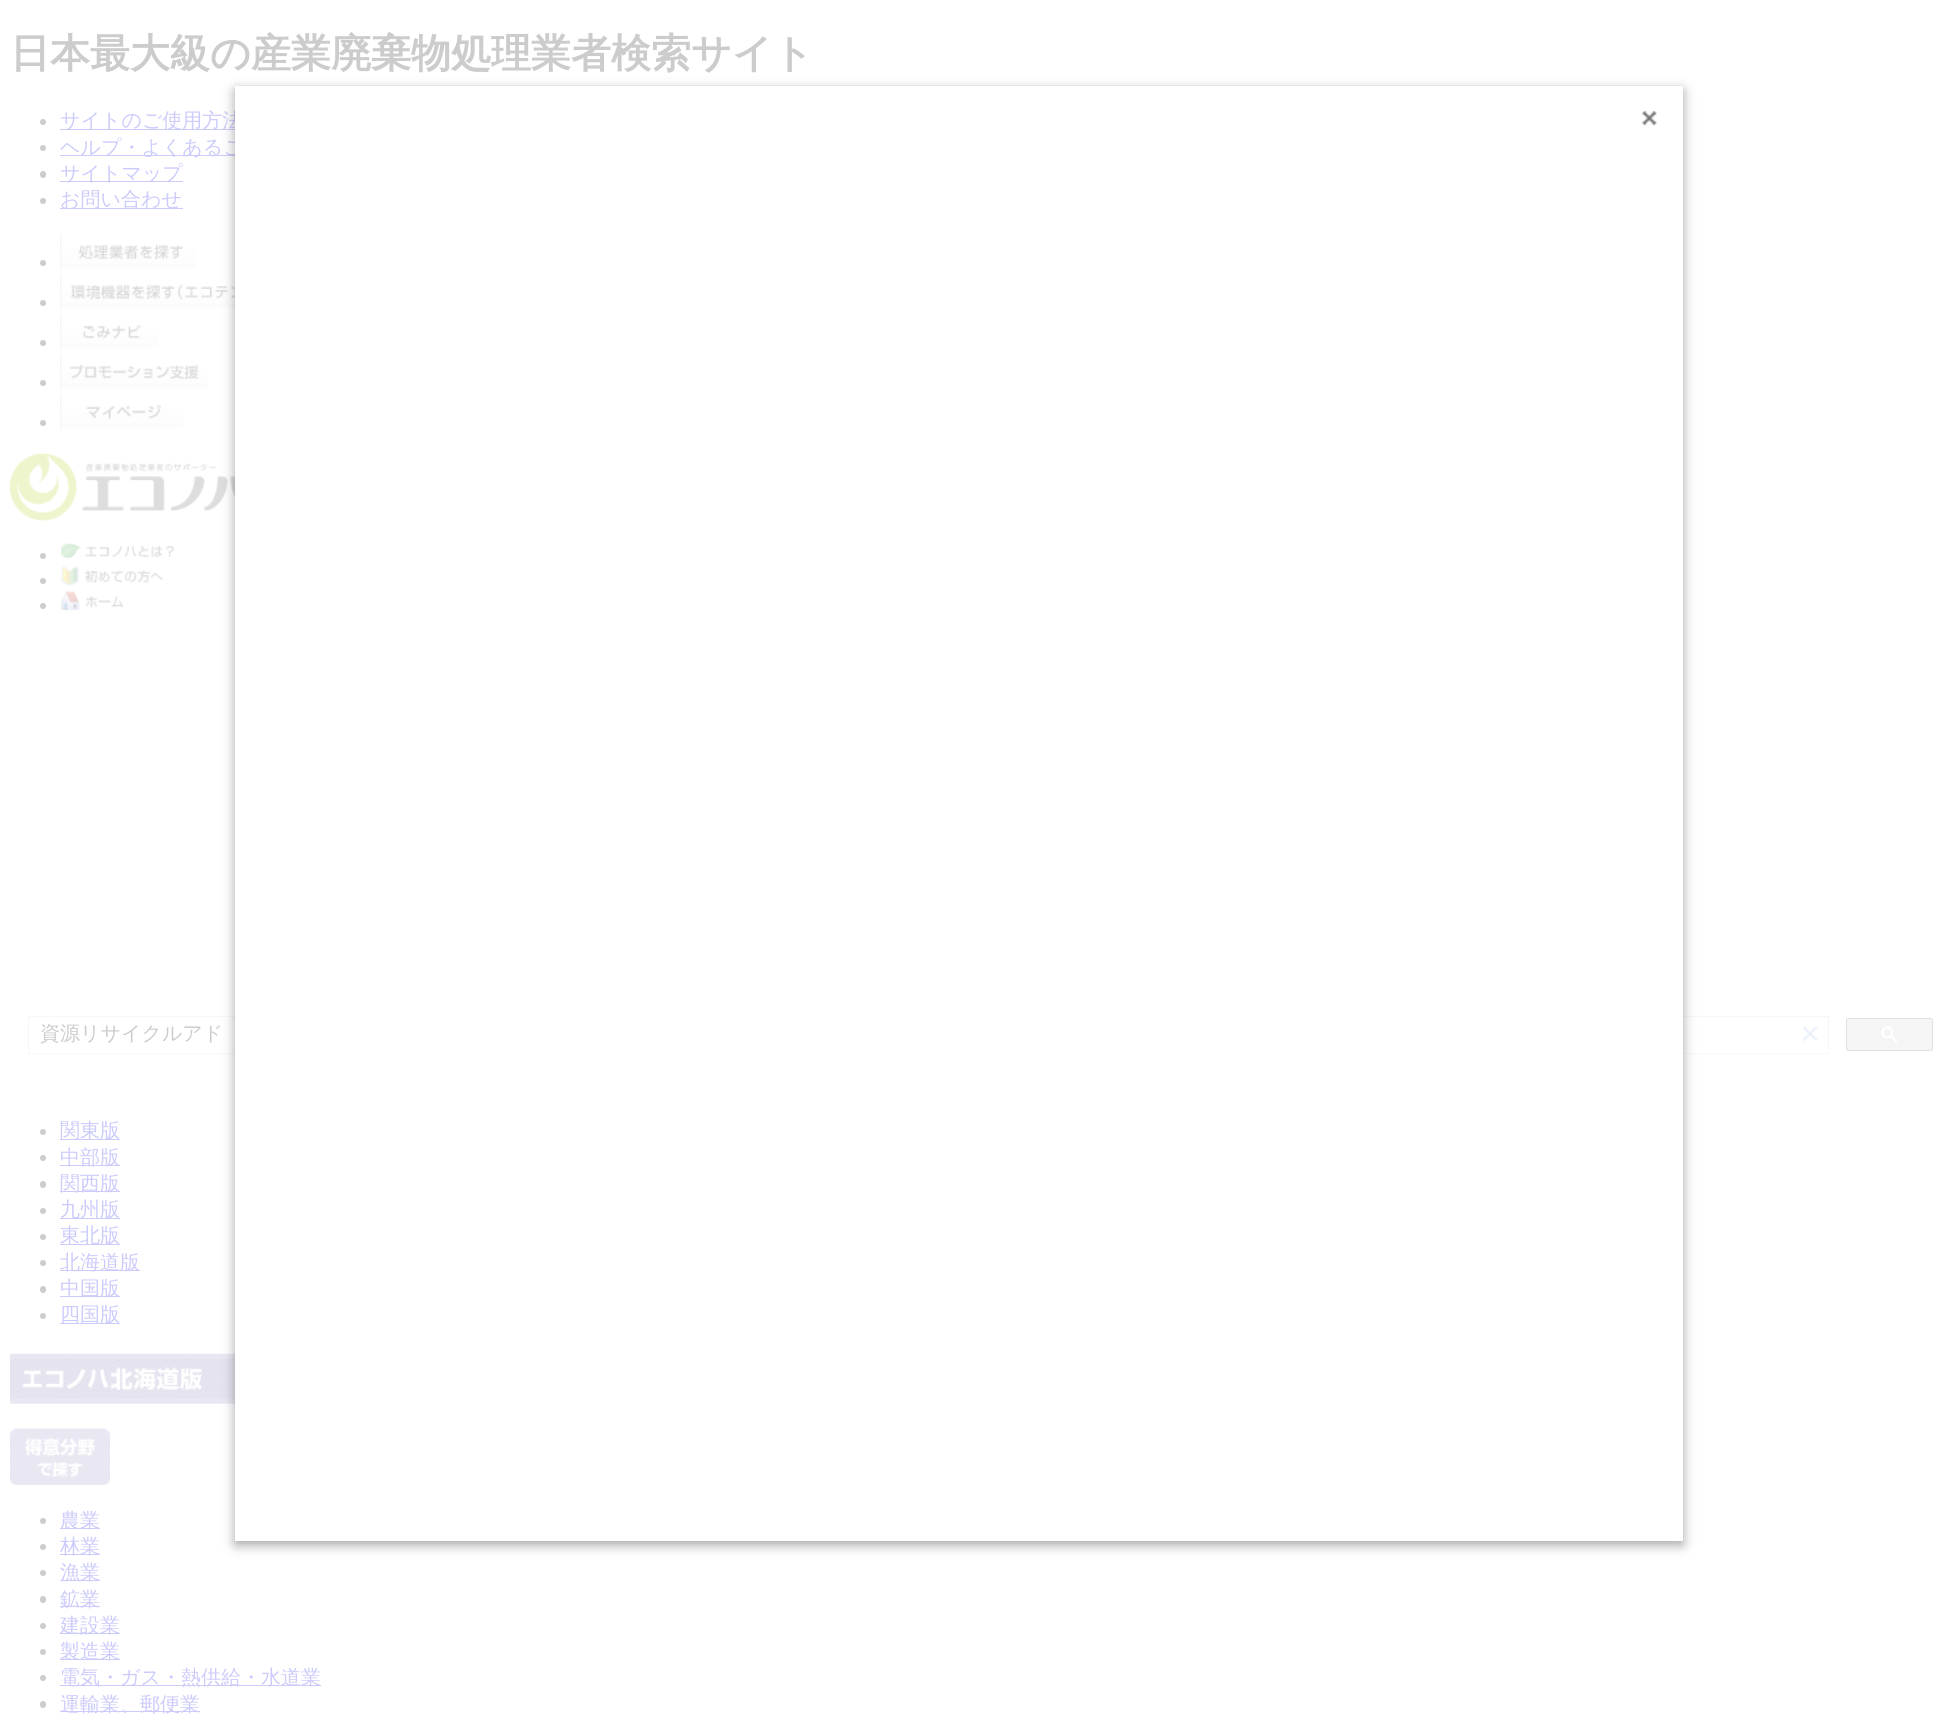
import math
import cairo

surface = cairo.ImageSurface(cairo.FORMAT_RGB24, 1959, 1725)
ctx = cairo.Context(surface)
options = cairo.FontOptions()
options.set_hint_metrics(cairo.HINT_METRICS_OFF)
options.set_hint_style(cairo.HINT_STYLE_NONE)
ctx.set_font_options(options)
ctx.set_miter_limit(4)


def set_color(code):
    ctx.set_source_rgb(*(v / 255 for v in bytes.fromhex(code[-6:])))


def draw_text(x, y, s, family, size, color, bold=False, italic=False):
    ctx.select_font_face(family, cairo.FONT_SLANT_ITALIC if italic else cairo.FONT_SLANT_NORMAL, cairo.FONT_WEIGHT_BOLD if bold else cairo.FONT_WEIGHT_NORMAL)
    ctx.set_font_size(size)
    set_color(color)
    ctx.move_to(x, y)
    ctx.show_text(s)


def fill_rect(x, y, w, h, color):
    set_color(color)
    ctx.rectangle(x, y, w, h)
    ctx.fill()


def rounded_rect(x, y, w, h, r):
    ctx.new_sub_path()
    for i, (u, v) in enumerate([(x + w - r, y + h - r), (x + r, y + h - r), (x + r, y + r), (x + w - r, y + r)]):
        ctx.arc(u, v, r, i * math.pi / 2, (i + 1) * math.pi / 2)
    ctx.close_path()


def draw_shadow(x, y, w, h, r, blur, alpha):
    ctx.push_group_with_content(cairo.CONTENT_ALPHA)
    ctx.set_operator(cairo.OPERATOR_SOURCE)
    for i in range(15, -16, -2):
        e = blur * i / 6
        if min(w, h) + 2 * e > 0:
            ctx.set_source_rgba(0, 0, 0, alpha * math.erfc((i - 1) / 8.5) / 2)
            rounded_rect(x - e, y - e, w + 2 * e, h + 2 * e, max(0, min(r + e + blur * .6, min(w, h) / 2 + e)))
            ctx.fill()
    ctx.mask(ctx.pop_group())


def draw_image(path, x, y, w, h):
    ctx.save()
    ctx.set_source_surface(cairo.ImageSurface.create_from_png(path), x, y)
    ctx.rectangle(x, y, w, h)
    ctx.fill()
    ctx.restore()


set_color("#ffffff")
ctx.paint()
draw_text(10, 67, "日本最大級の産業廃棄物処理業者検索サイト", "WenQuanYi Zen Hei", 40, "#cccccc", bold=True)
ctx.new_path()
ctx.arc(43, 122, 3, 0, 2 * math.pi)
ctx.fill()
fill_rect(60, 129, 183, 1, "#ccccfc")
draw_text(60, 127, "サイトのご使用方法", "WenQuanYi Zen Hei Medium", 20, "#ccccfc")
set_color("#cccccc")
ctx.new_path()
ctx.arc(43, 148, 3, 0, 2 * math.pi)
ctx.fill()
fill_rect(60, 155, 175, 1, "#ccccfc")
draw_text(60, 154, "ヘルプ・よくあるご", "WenQuanYi Zen Hei Medium", 20, "#ccccfc")
set_color("#cccccc")
rounded_rect(40, 171, 6, 7, 3)
ctx.fill()
fill_rect(60, 181, 123, 1, "#ccccfc")
draw_text(60, 180, "サイトマップ", "WenQuanYi Zen Hei Medium", 20, "#ccccfc")
set_color("#cccccc")
ctx.new_path()
ctx.arc(43, 201, 3, 0, 2 * math.pi)
ctx.fill()
fill_rect(60, 208, 123, 1, "#ccccfc")
draw_text(60, 206, "お問い合わせ", "WenQuanYi Zen Hei Medium", 20, "#ccccfc")
set_color("#cccccc")
ctx.new_path()
ctx.arc(43, 263, 3, 0, 2 * math.pi)
ctx.fill()
draw_image("assets/img1.png", 60, 233, 137, 36)
ctx.arc(43, 303, 3, 0, 2 * math.pi)
ctx.fill()
draw_image("assets/img2.png", 60, 273, 175, 36)
ctx.arc(43, 343, 3, 0, 2 * math.pi)
ctx.fill()
draw_image("assets/img3.png", 60, 313, 99, 36)
ctx.arc(43, 383, 3, 0, 2 * math.pi)
ctx.fill()
draw_image("assets/img4.png", 60, 353, 149, 36)
ctx.arc(43, 423, 3, 0, 2 * math.pi)
ctx.fill()
draw_image("assets/img5.png", 60, 393, 124, 36)
draw_image("assets/img6.png", 10, 453, 225, 69)
ctx.arc(43, 556, 3, 0, 2 * math.pi)
ctx.fill()
draw_image("assets/img7.png", 61, 543, 113, 16)
ctx.arc(43, 581, 3, 0, 2 * math.pi)
ctx.fill()
draw_image("assets/img8.png", 61, 566, 103, 20)
ctx.arc(43, 606, 3, 0, 2 * math.pi)
ctx.fill()
draw_image("assets/img9.png", 61, 591, 63, 20)
ctx.rectangle(28.5, 1016.5, 1800, 37)
set_color("#f7f7f7")
ctx.set_line_width(1)
ctx.stroke()
draw_image("assets/img12.png", 10, 1353, 225, 51)
set_color("#221919")
draw_shadow(235, 90, 1448, 1455, 1, 6, 0.4)
set_color("#ffffff")
rounded_rect(235, 86, 1448, 1455, 1)
ctx.fill()
draw_image("assets/img10.png", 1642, 111, 15, 15)
draw_text(40, 1040, "資源リサイクルアド", "WenQuanYi Zen Hei Medium", 20, "#cccccc")
draw_text(1800, 1045, "×", "Liberation Sans", 34, "#ecf1fb")
set_color("#f5f5f5")
rounded_rect(1846.5, 1018.5, 86, 32, 2)
ctx.fill_preserve()
set_color("#e0e0e0")
ctx.stroke()
draw_image("assets/img11.png", 1881, 1026, 17, 17)
set_color("#cccccc")
ctx.arc(43, 1132, 3, 0, 2 * math.pi)
ctx.fill()
fill_rect(60, 1139, 60, 1, "#ccccfc")
draw_text(60, 1137, "関東版", "WenQuanYi Zen Hei Medium", 20, "#ccccfc")
set_color("#cccccc")
ctx.new_path()
ctx.arc(43, 1158, 3, 0, 2 * math.pi)
ctx.fill()
fill_rect(60, 1165, 60, 1, "#ccccfc")
draw_text(60, 1164, "中部版", "WenQuanYi Zen Hei Medium", 20, "#ccccfc")
set_color("#cccccc")
rounded_rect(40, 1181, 6, 7, 3)
ctx.fill()
fill_rect(60, 1191, 60, 1, "#ccccfc")
draw_text(60, 1190, "関西版", "WenQuanYi Zen Hei Medium", 20, "#ccccfc")
set_color("#cccccc")
ctx.new_path()
ctx.arc(43, 1211, 3, 0, 2 * math.pi)
ctx.fill()
fill_rect(60, 1218, 60, 1, "#ccccfc")
draw_text(60, 1216, "九州版", "WenQuanYi Zen Hei Medium", 20, "#ccccfc")
set_color("#cccccc")
ctx.new_path()
ctx.arc(43, 1237, 3, 0, 2 * math.pi)
ctx.fill()
fill_rect(60, 1244, 60, 1, "#ccccfc")
draw_text(60, 1242, "東北版", "WenQuanYi Zen Hei Medium", 20, "#ccccfc")
set_color("#cccccc")
ctx.new_path()
ctx.arc(43, 1263, 3, 0, 2 * math.pi)
ctx.fill()
fill_rect(60, 1270, 80, 1, "#ccccfc")
draw_text(60, 1269, "北海道版", "WenQuanYi Zen Hei Medium", 20, "#ccccfc")
set_color("#cccccc")
rounded_rect(40, 1286, 6, 7, 3)
ctx.fill()
fill_rect(60, 1296, 60, 1, "#ccccfc")
draw_text(60, 1295, "中国版", "WenQuanYi Zen Hei Medium", 20, "#ccccfc")
set_color("#cccccc")
ctx.new_path()
ctx.arc(43, 1316, 3, 0, 2 * math.pi)
ctx.fill()
fill_rect(60, 1323, 60, 1, "#ccccfc")
draw_text(60, 1321, "四国版", "WenQuanYi Zen Hei Medium", 20, "#ccccfc")
draw_image("assets/img13.png", 10, 1428, 100, 57)
set_color("#cccccc")
ctx.arc(43, 1521, 3, 0, 2 * math.pi)
ctx.fill()
fill_rect(60, 1528, 40, 1, "#ccccfc")
draw_text(60, 1527, "農業", "WenQuanYi Zen Hei Medium", 20, "#ccccfc")
set_color("#cccccc")
ctx.new_path()
ctx.arc(43, 1547, 3, 0, 2 * math.pi)
ctx.fill()
fill_rect(60, 1554, 40, 1, "#ccccfc")
draw_text(60, 1553, "林業", "WenQuanYi Zen Hei Medium", 20, "#ccccfc")
set_color("#cccccc")
ctx.new_path()
ctx.arc(43, 1573, 3, 0, 2 * math.pi)
ctx.fill()
fill_rect(60, 1580, 40, 1, "#ccccfc")
draw_text(60, 1579, "漁業", "WenQuanYi Zen Hei Medium", 20, "#ccccfc")
set_color("#cccccc")
rounded_rect(40, 1596, 6, 7, 3)
ctx.fill()
fill_rect(60, 1606, 40, 1, "#ccccfc")
draw_text(60, 1606, "鉱業", "WenQuanYi Zen Hei Medium", 20, "#ccccfc")
set_color("#cccccc")
ctx.new_path()
ctx.arc(43, 1626, 3, 0, 2 * math.pi)
ctx.fill()
fill_rect(60, 1633, 60, 1, "#ccccfc")
draw_text(60, 1632, "建設業", "WenQuanYi Zen Hei Medium", 20, "#ccccfc")
set_color("#cccccc")
ctx.new_path()
ctx.arc(43, 1652, 3, 0, 2 * math.pi)
ctx.fill()
fill_rect(60, 1659, 60, 1, "#ccccfc")
draw_text(60, 1658, "製造業", "WenQuanYi Zen Hei Medium", 20, "#ccccfc")
set_color("#cccccc")
ctx.new_path()
ctx.arc(43, 1678, 3, 0, 2 * math.pi)
ctx.fill()
fill_rect(60, 1685, 261, 1, "#ccccfc")
draw_text(60, 1684, "電気・ガス・熱供給・水道業", "WenQuanYi Zen Hei Medium", 20, "#ccccfc")
set_color("#cccccc")
rounded_rect(40, 1701, 6, 7, 3)
ctx.fill()
fill_rect(60, 1711, 140, 1, "#ccccfc")
draw_text(60, 1711, "運輸業、郵便業", "WenQuanYi Zen Hei Medium", 20, "#ccccfc")
surface.write_to_png("output.png")
